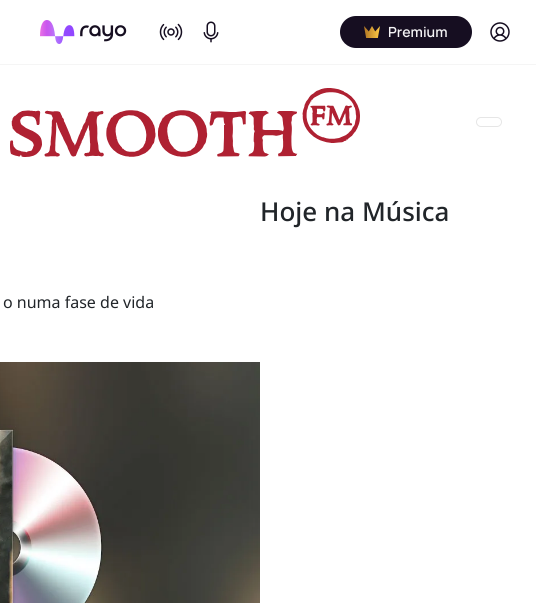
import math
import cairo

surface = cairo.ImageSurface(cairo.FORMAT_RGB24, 536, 603)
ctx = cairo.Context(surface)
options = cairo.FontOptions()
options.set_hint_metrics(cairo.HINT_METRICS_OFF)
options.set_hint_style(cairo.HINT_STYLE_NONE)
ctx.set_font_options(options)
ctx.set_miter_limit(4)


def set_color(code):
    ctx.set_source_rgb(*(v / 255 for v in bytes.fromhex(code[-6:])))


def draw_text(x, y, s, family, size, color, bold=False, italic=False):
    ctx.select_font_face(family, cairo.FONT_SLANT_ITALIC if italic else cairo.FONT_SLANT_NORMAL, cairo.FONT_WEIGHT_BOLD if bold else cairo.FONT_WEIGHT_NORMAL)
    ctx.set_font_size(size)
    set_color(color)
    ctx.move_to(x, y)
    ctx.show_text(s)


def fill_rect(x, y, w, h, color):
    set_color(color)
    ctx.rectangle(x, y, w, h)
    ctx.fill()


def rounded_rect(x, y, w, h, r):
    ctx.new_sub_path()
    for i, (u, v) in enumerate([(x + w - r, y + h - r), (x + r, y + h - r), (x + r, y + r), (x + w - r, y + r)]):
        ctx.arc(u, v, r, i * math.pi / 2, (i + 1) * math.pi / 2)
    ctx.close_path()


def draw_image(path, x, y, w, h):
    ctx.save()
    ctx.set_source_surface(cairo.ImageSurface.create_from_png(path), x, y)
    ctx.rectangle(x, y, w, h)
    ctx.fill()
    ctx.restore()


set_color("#ffffff")
ctx.paint()
fill_rect(0, 64, 536, 1, "#f5f5f5")
draw_image("assets/img1.png", 40, 20, 87, 24)
draw_image("assets/img2.png", 159, 23, 24, 18)
draw_image("assets/img3.png", 203, 21, 16, 22)
set_color("#160e21")
rounded_rect(340, 16, 132, 32, 16)
ctx.fill()
draw_image("assets/img4.png", 364, 26, 16, 12)
draw_text(388, 37, "Premium", "Manrope SemiBold", 14, "#f4f3f5")
draw_image("assets/img5.png", 490, 22, 20, 20)
draw_image("assets/img6.png", 10, 88, 350, 69)
rounded_rect(476.5, 117.5, 25, 9, 4.5)
set_color("#e6e6e6")
ctx.set_line_width(1)
ctx.stroke()
draw_text(260, 221, "Hoje na Música", "Noto Sans Medium", 26, "#212529")
draw_text(3, 308, "o numa fase de vida", "Noto Sans", 16, "#212529")
draw_image("assets/img7.png", 0, 362, 260, 241)
surface.write_to_png("output.png")
